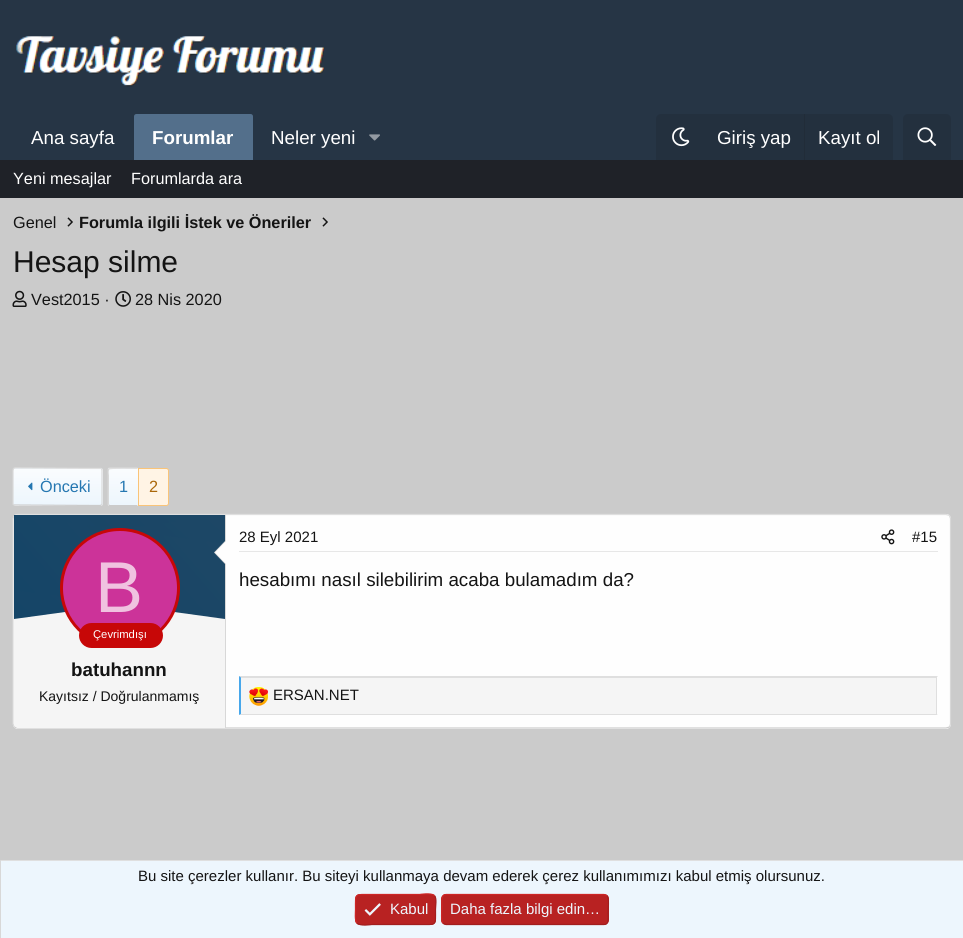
import math
import cairo

surface = cairo.ImageSurface(cairo.FORMAT_RGB24, 963, 938)
ctx = cairo.Context(surface)
options = cairo.FontOptions()
options.set_hint_metrics(cairo.HINT_METRICS_OFF)
options.set_hint_style(cairo.HINT_STYLE_NONE)
ctx.set_font_options(options)
ctx.set_miter_limit(4)


def set_color(code):
    ctx.set_source_rgb(*(v / 255 for v in bytes.fromhex(code[-6:])))


def draw_text(x, y, s, family, size, color, bold=False, italic=False):
    ctx.select_font_face(family, cairo.FONT_SLANT_ITALIC if italic else cairo.FONT_SLANT_NORMAL, cairo.FONT_WEIGHT_BOLD if bold else cairo.FONT_WEIGHT_NORMAL)
    ctx.set_font_size(size)
    set_color(color)
    ctx.move_to(x, y)
    ctx.show_text(s)


def fill_rect(x, y, w, h, color):
    set_color(color)
    ctx.rectangle(x, y, w, h)
    ctx.fill()


def rounded_rect(x, y, w, h, r):
    ctx.new_sub_path()
    for i, (u, v) in enumerate([(x + w - r, y + h - r), (x + r, y + h - r), (x + r, y + r), (x + w - r, y + r)]):
        ctx.arc(u, v, r, i * math.pi / 2, (i + 1) * math.pi / 2)
    ctx.close_path()


def draw_image(path, x, y, w, h):
    ctx.save()
    ctx.set_source_surface(cairo.ImageSurface.create_from_png(path), x, y)
    ctx.rectangle(x, y, w, h)
    ctx.fill()
    ctx.restore()


set_color("#cbcbcb")
ctx.paint()
fill_rect(0, 0, 963, 160, "#263545")
draw_image("assets/img1.png", 16, 36, 308, 51)
draw_text(31, 144, "Ana sayfa", "Liberation Sans", 18.75, "#ffffff")
set_color("#536f8b")
ctx.new_path()
ctx.move_to(136.5, 114)
ctx.line_to(250.5, 114)
ctx.curve_to(252, 114, 253, 115, 253, 116.5)
ctx.line_to(253, 160)
ctx.line_to(134, 160)
ctx.line_to(134, 116.5)
ctx.curve_to(134, 115, 135, 114, 136.5, 114)
ctx.close_path()
ctx.fill()
draw_text(152, 144, "Forumlar", "Liberation Sans", 18.75, "#ffffff", bold=True)
draw_text(271, 144, "Neler yeni", "Liberation Sans", 18.75, "#ffffff")
draw_image("assets/img2.png", 369, 134, 11, 7)
set_color("#23303e")
ctx.new_path()
ctx.move_to(661, 114)
ctx.line_to(888, 114)
ctx.curve_to(891, 114, 893, 116, 893, 119)
ctx.line_to(893, 160)
ctx.line_to(656, 160)
ctx.line_to(656, 119)
ctx.curve_to(656, 116, 658, 114, 661, 114)
ctx.close_path()
ctx.fill()
draw_image("assets/img3.png", 672, 127, 18, 20)
draw_text(717, 144, "Giriş yap", "Liberation Sans", 18.75, "#ffffff")
fill_rect(804, 114, 1, 46, "#212c38")
draw_text(818, 144, "Kayıt ol", "Liberation Sans", 18.75, "#ffffff")
set_color("#23303e")
ctx.new_path()
ctx.move_to(908, 114)
ctx.line_to(946, 114)
ctx.curve_to(949, 114, 951, 116, 951, 119)
ctx.line_to(951, 160)
ctx.line_to(903, 160)
ctx.line_to(903, 119)
ctx.curve_to(903, 116, 905, 114, 908, 114)
ctx.close_path()
ctx.fill()
draw_image("assets/img4.png", 917, 127, 20, 19)
fill_rect(0, 160, 963, 38, "#1f2228")
draw_text(13, 184, "Yeni mesajlar", "Liberation Sans", 16.25, "#ffffff")
draw_text(131, 184, "Forumlarda ara", "Liberation Sans", 16.25, "#ffffff")
draw_text(13, 228, "Genel", "Liberation Sans", 16.25, "#141414")
draw_image("assets/img5.png", 67, 217, 6, 10)
draw_text(79, 228, "Forumla ilgili İstek ve Öneriler", "Liberation Sans", 16.25, "#141414", bold=True)
draw_image("assets/img5.png", 322, 217, 6, 10)
draw_text(13, 272, "Hesap silme", "Liberation Sans", 30, "#141414")
draw_image("assets/img6.png", 12, 290, 15, 17)
draw_text(31, 305, "Vest2015 ·", "Liberation Sans", 16.25, "#141414")
draw_image("assets/img7.png", 115, 291, 16, 16)
draw_text(135, 305, "28 Nis 2020", "Liberation Sans", 16.25, "#141414")
ctx.save()
rounded_rect(13, 468, 90, 38, 2.5)
ctx.clip()
gradient = cairo.LinearGradient(58, 469, 58, 433)
gradient.add_color_stop_rgba(0, 0.929, 0.965, 0.992, 1)
gradient.add_color_stop_rgba(1, 0.98, 0.988, 0.996, 1)
ctx.set_source(gradient)
ctx.rectangle(13, 468, 90, 1)
ctx.fill()
gradient = cairo.LinearGradient(58, 505, 58, 469)
gradient.add_color_stop_rgba(0, 0.929, 0.965, 0.992, 1)
gradient.add_color_stop_rgba(1, 0.98, 0.988, 0.996, 1)
ctx.set_source(gradient)
ctx.rectangle(13, 469, 90, 36)
ctx.fill()
gradient = cairo.LinearGradient(58, 541, 58, 505)
gradient.add_color_stop_rgba(0, 0.929, 0.965, 0.992, 1)
gradient.add_color_stop_rgba(1, 0.98, 0.988, 0.996, 1)
ctx.set_source(gradient)
ctx.rectangle(13, 505, 90, 1)
ctx.fill()
ctx.restore()
ctx.new_path()
ctx.move_to(13.5, 468.5)
ctx.line_to(15, 468)
ctx.line_to(101.5, 468.5)
set_color("#dfdfdf")
ctx.set_line_width(1.2)
ctx.stroke()
ctx.new_path()
ctx.move_to(101.5, 468.5)
ctx.line_to(102, 470)
ctx.line_to(102, 504)
ctx.line_to(101.5, 505)
set_color("#d8d8d8")
ctx.stroke()
ctx.new_path()
ctx.move_to(101.5, 505)
ctx.line_to(100, 505.5)
ctx.line_to(13.5, 505)
set_color("#cbcbcb")
ctx.stroke()
ctx.new_path()
ctx.move_to(13.5, 505)
ctx.line_to(13, 504)
ctx.line_to(13, 470)
ctx.line_to(13.5, 468.5)
set_color("#d8d8d8")
ctx.stroke()
draw_image("assets/img8.png", 28, 482, 5, 9)
draw_text(40, 492, "Önceki", "Liberation Sans", 16.25, "#2577b1")
gradient = cairo.LinearGradient(123, 469, 123, 433)
gradient.add_color_stop_rgba(0, 0.929, 0.965, 0.992, 1)
gradient.add_color_stop_rgba(1, 0.98, 0.988, 0.996, 1)
ctx.set_source(gradient)
ctx.rectangle(108, 468, 30, 1)
ctx.fill()
gradient = cairo.LinearGradient(123, 505, 123, 469)
gradient.add_color_stop_rgba(0, 0.929, 0.965, 0.992, 1)
gradient.add_color_stop_rgba(1, 0.98, 0.988, 0.996, 1)
ctx.set_source(gradient)
ctx.rectangle(108, 469, 30, 36)
ctx.fill()
gradient = cairo.LinearGradient(123, 541, 123, 505)
gradient.add_color_stop_rgba(0, 0.929, 0.965, 0.992, 1)
gradient.add_color_stop_rgba(1, 0.98, 0.988, 0.996, 1)
ctx.set_source(gradient)
ctx.rectangle(108, 505, 30, 1)
ctx.fill()
set_color("#dfdfdf")
ctx.new_path()
ctx.move_to(110, 467.5)
ctx.line_to(108, 468)
ctx.line_to(109.5, 469.5)
ctx.curve_to(110, 468.5, 134.5, 469, 137.5, 469)
ctx.line_to(137.5, 467.5)
ctx.close_path()
ctx.fill()
set_color("#cbcbcb")
ctx.new_path()
ctx.move_to(109.5, 506)
ctx.curve_to(109, 506, 108.5, 506, 108, 505.5)
ctx.line_to(109, 504.5)
ctx.line_to(110, 505)
ctx.line_to(137.5, 505)
ctx.line_to(137.5, 506)
ctx.close_path()
ctx.fill()
set_color("#d8d8d8")
ctx.new_path()
ctx.move_to(107.5, 469.5)
ctx.line_to(107.5, 504.5)
ctx.line_to(108, 505.5)
ctx.line_to(109, 504.5)
ctx.line_to(109, 475.5)
ctx.curve_to(109, 473.5, 108, 471, 109.5, 469.5)
ctx.line_to(108, 468)
ctx.close_path()
ctx.fill()
draw_text(119, 492, "1", "Liberation Sans", 16.25, "#2577b1")
set_color("#fff4e5")
ctx.new_path()
ctx.move_to(138.5, 468.5)
ctx.line_to(166.5, 468.5)
ctx.curve_to(167.5, 468.5, 168.5, 469.5, 168.5, 470.5)
ctx.line_to(168.5, 503.5)
ctx.curve_to(168.5, 504.5, 167.5, 505.5, 166.5, 505.5)
ctx.line_to(138.5, 505.5)
ctx.close_path()
ctx.fill_preserve()
set_color("#f9c479")
ctx.set_line_width(1)
ctx.stroke()
draw_text(149, 492, "2", "Liberation Sans", 16.25, "#aa6709")
set_color("#fefefe")
rounded_rect(13, 514, 938, 215, 5)
ctx.fill()
ctx.new_path()
ctx.move_to(14.5, 515.5)
ctx.line_to(17.5, 514.5)
ctx.line_to(946, 514.5)
ctx.line_to(949.5, 515.5)
set_color("#dfdfdf")
ctx.set_line_width(1.2)
ctx.stroke()
ctx.new_path()
ctx.move_to(949.5, 515.5)
ctx.line_to(950.5, 518.5)
ctx.line_to(950.5, 689.5)
ctx.line_to(950.5, 724)
ctx.line_to(949.5, 727)
set_color("#d8d8d8")
ctx.stroke()
ctx.new_path()
ctx.move_to(949.5, 727)
ctx.line_to(946, 728)
ctx.line_to(17.5, 728)
ctx.line_to(14.5, 727)
set_color("#cbcbcb")
ctx.stroke()
ctx.new_path()
ctx.move_to(14.5, 727)
ctx.line_to(13, 724)
ctx.line_to(13, 518.5)
ctx.line_to(14.5, 515.5)
set_color("#d8d8d8")
ctx.stroke()
set_color("#f5f5f5")
ctx.new_path()
ctx.move_to(18, 515)
ctx.line_to(226, 515)
ctx.line_to(226, 728)
ctx.line_to(18, 728)
ctx.curve_to(16, 728, 14, 726, 14, 724)
ctx.line_to(14, 519)
ctx.curve_to(14, 517, 16, 515, 18, 515)
ctx.close_path()
ctx.fill()
fill_rect(225, 515, 1, 213, "#d8d8d8")
gradient = cairo.LinearGradient(48, 624, 191, 481)
gradient.add_color_stop_rgba(0, 0.082, 0.271, 0.404, 1)
gradient.add_color_stop_rgba(1, 0.114, 0.278, 0.4, 1)
ctx.set_source(gradient)
ctx.rectangle(14, 515, 211, 14)
ctx.fill()
gradient = cairo.LinearGradient(48, 649, 191, 485)
gradient.add_color_stop_rgba(0, 0.082, 0.271, 0.404, 1)
gradient.add_color_stop_rgba(1, 0.114, 0.278, 0.4, 1)
ctx.set_source(gradient)
ctx.new_path()
ctx.move_to(14, 544)
ctx.line_to(225, 515)
ctx.line_to(225, 590)
ctx.line_to(14, 619)
ctx.close_path()
ctx.fill()
gradient = cairo.LinearGradient(48, 628, 191, 505)
gradient.add_color_stop_rgba(0, 0.082, 0.271, 0.404, 1)
gradient.add_color_stop_rgba(1, 0.114, 0.278, 0.4, 1)
ctx.set_source(gradient)
ctx.new_path()
ctx.move_to(14, 515)
ctx.line_to(225, 544)
ctx.line_to(225, 619)
ctx.line_to(14, 590)
ctx.close_path()
ctx.fill()
set_color("#d8d8d8")
ctx.new_path()
ctx.move_to(226, 540)
ctx.line_to(226, 565)
ctx.line_to(214, 552.5)
ctx.close_path()
ctx.fill()
set_color("#fefefe")
ctx.new_path()
ctx.move_to(226, 541)
ctx.line_to(226, 564)
ctx.line_to(215, 552.5)
ctx.close_path()
ctx.fill()
set_color("#cc3399")
ctx.arc(120, 588, 58.5, 0, 2 * math.pi)
ctx.fill_preserve()
set_color("#c70707")
ctx.set_line_width(3)
ctx.stroke()
draw_text(95, 612, "B", "Liberation Sans", 72, "#f0c2e0")
set_color("#c70707")
rounded_rect(79, 623, 84, 25, 12.5)
ctx.fill()
draw_text(93, 638, "Çevrimdışı", "Liberation Sans", 11.25, "#ffffff")
draw_text(71, 676, "batuhannn", "Liberation Sans", 18.75, "#141414", bold=True)
draw_text(39, 701, "Kayıtsız / Doğrulanmamış", "Liberation Sans", 14, "#141414")
fill_rect(239, 551, 699, 1, "#e7e7e7")
draw_text(239, 542, "28 Eyl 2021", "Liberation Sans", 15, "#141414")
draw_image("assets/img9.png", 881, 529, 14, 16)
draw_text(912, 542, "#15", "Liberation Sans", 15, "#141414")
draw_text(239, 586, "hesabımı nasıl silebilirim acaba bulamadım da?", "Liberation Sans", 18.75, "#141414")
fill_rect(241, 678, 695, 36, "#f5f5f5")
set_color("#dfdfdf")
ctx.new_path()
ctx.move_to(239, 676)
ctx.line_to(938, 676)
ctx.line_to(936, 678)
ctx.line_to(241, 678)
ctx.close_path()
ctx.fill()
fill_rect(936, 676, 1, 39, "#dfdfdf")
ctx.new_path()
ctx.move_to(938, 715)
ctx.line_to(239, 715)
ctx.line_to(241, 714)
ctx.line_to(936, 714)
ctx.close_path()
ctx.fill()
set_color("#47a7eb")
ctx.new_path()
ctx.move_to(239, 715)
ctx.line_to(239, 676)
ctx.line_to(241, 677.5)
ctx.line_to(241, 714)
ctx.close_path()
ctx.fill()
draw_image("assets/img10.png", 249, 687, 19, 19)
draw_text(273, 700, "ERSAN.NET", "Liberation Sans", 15, "#141414")
fill_rect(1, 861, 962, 77, "#edf6fd")
fill_rect(0, 860, 963, 1, "#dfdfdf")
fill_rect(0, 860, 1, 78, "#d8d8d8")
draw_text(138, 881, "Bu site çerezler kullanır. Bu siteyi kullanmaya devam ederek çerez kullanımımızı kabul etmiş olursunuz.", "Liberation Sans", 15, "#141414")
set_color("#b82222")
rounded_rect(355, 894, 81, 31, 5)
ctx.fill()
ctx.new_path()
ctx.move_to(434.5, 895.5)
ctx.curve_to(437, 898.5, 435.5, 906, 435.5, 909.5)
ctx.curve_to(435.5, 926.5, 437, 924.5, 419.5, 924.5)
ctx.line_to(372, 924.5)
ctx.curve_to(371.5, 924.5, 360, 926.5, 357, 923)
set_color("#a21e1e")
ctx.set_line_width(1.2)
ctx.stroke()
ctx.new_path()
ctx.move_to(357, 923)
ctx.curve_to(354.5, 920.5, 355.5, 912.5, 355.5, 909.5)
ctx.curve_to(355.5, 892.5, 354, 894.5, 372, 894.5)
ctx.line_to(419.5, 894.5)
ctx.curve_to(419.5, 894.5, 431, 892.5, 434.5, 895.5)
set_color("#ce2626")
ctx.stroke()
draw_image("assets/img11.png", 364, 903, 17, 13)
draw_text(390, 914, "Kabul", "Liberation Sans", 15, "#edf6fd")
set_color("#b82222")
rounded_rect(441, 894, 168, 31, 5)
ctx.fill()
ctx.new_path()
ctx.move_to(607, 895.5)
ctx.curve_to(609.5, 898.5, 608, 909.5, 608, 913)
ctx.curve_to(608, 916.5, 609.5, 924.5, 604, 924.5)
ctx.line_to(446, 924.5)
ctx.line_to(443, 923)
set_color("#a21e1e")
ctx.stroke()
ctx.new_path()
ctx.move_to(443, 923)
ctx.curve_to(440.5, 920.5, 442, 909.5, 442, 906)
ctx.curve_to(442, 902.5, 440.5, 894.5, 446, 894.5)
ctx.line_to(604, 894.5)
ctx.line_to(607, 895.5)
set_color("#ce2626")
ctx.stroke()
draw_text(450, 914, "Daha fazla bilgi edin…", "Liberation Sans", 15, "#edf6fd")
surface.write_to_png("output.png")
